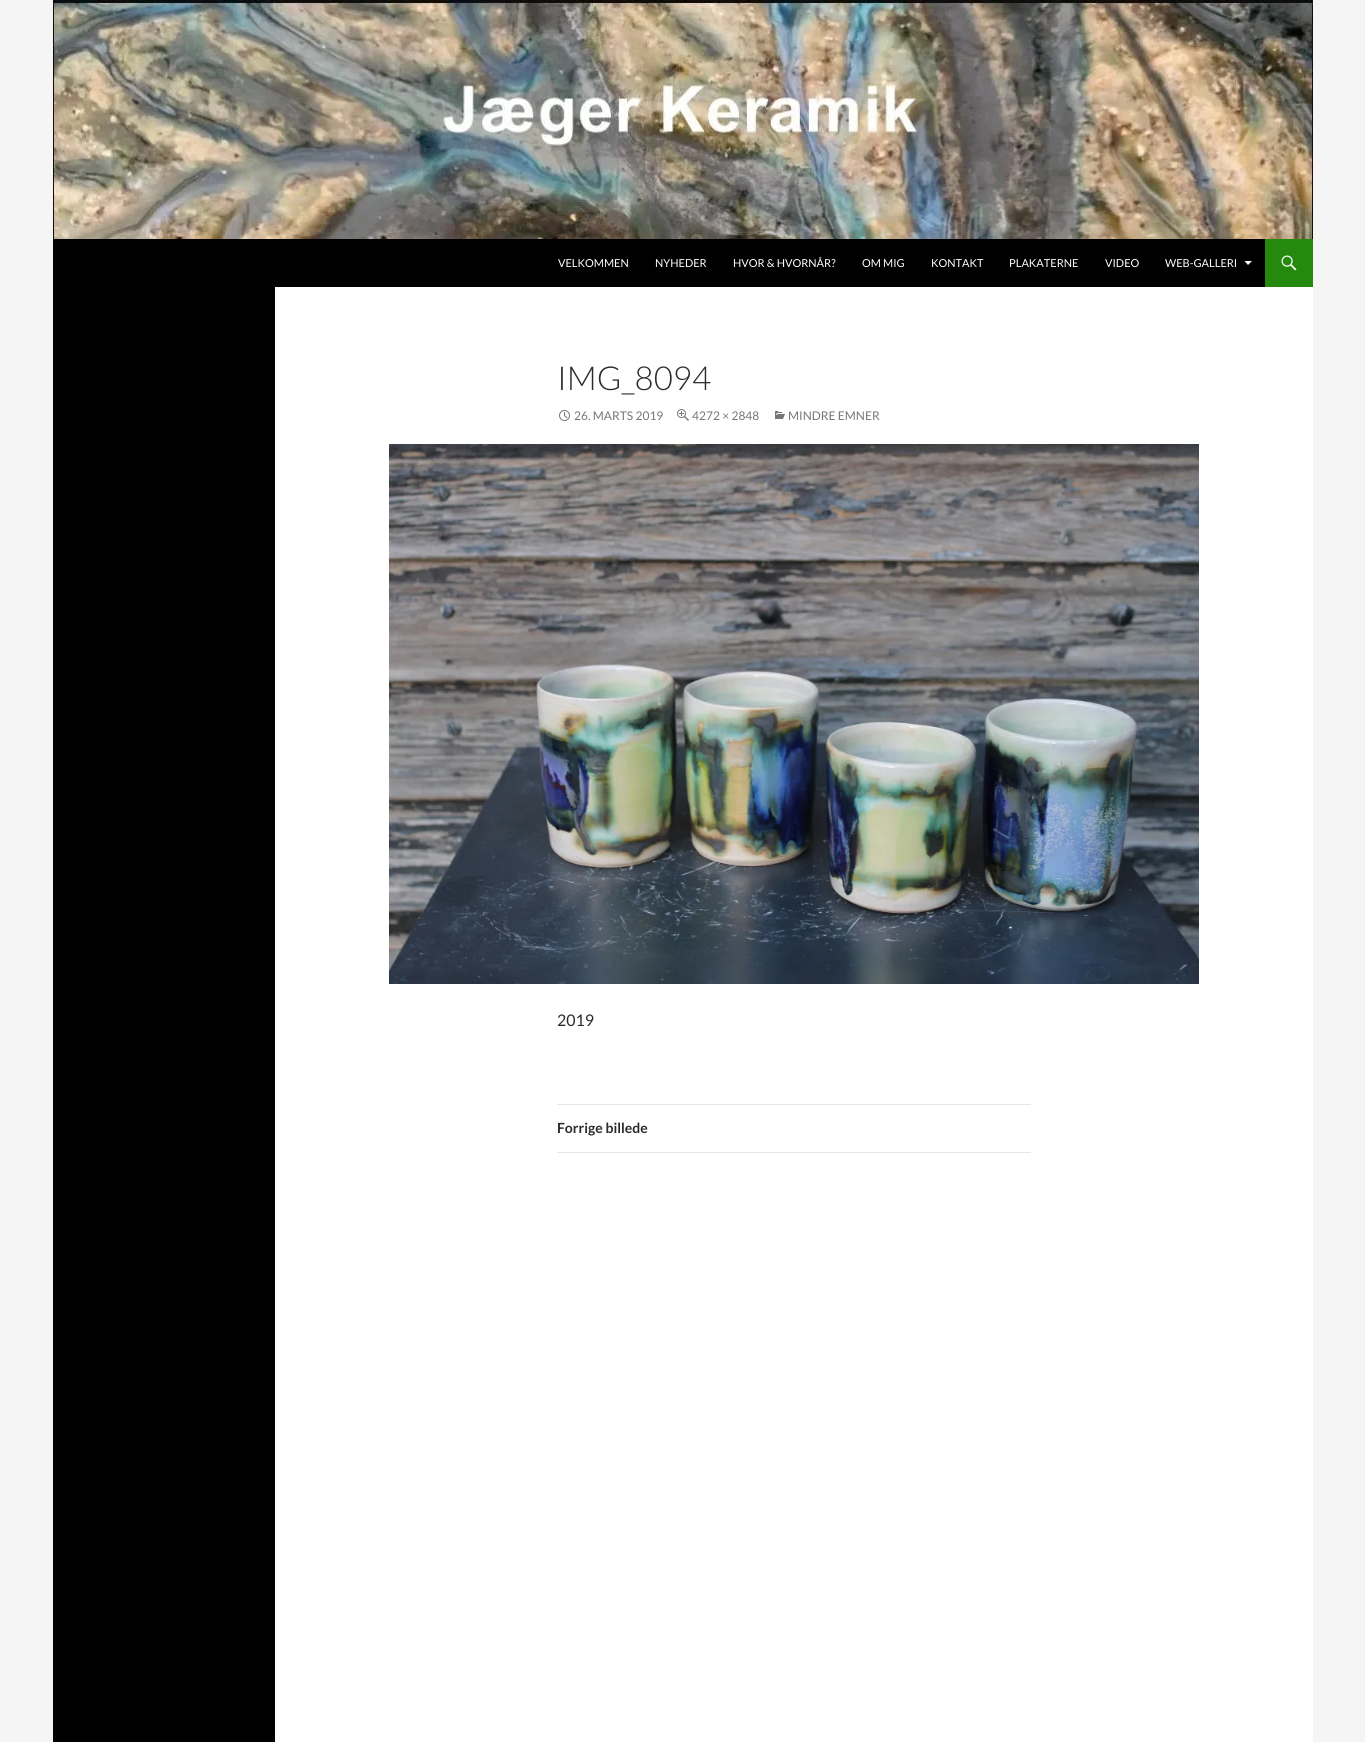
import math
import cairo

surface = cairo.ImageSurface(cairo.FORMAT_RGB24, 1365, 1742)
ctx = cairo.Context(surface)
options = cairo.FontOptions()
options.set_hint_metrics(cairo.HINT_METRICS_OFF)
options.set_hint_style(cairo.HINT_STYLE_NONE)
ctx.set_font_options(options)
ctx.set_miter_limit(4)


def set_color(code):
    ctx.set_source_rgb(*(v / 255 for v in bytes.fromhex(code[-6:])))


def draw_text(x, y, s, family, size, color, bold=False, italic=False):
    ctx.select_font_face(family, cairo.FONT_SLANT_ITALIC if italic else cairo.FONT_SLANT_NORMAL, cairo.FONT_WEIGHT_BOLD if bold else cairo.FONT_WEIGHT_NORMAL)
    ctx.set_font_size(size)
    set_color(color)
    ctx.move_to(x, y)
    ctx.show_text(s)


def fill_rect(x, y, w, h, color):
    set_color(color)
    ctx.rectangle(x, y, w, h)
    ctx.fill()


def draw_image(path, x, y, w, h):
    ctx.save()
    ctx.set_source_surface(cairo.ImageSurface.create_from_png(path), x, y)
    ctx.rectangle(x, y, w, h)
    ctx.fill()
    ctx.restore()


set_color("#f5f5f5")
ctx.paint()
fill_rect(275, 287, 1038, 1455, "#ffffff")
draw_image("assets/img1.png", 53, 0, 1260, 239)
fill_rect(53, 239, 1212, 48, "#000000")
draw_text(558, 267, "VELKOMMEN", "Lato", 11, "#ffffff")
draw_text(655, 267, "NYHEDER", "Lato", 11, "#ffffff")
draw_text(733, 267, "HVOR & HVORNÅR?", "Lato", 11, "#ffffff")
draw_text(862, 267, "OM MIG", "Lato", 11, "#ffffff")
draw_text(931, 267, "KONTAKT", "Lato", 11, "#ffffff")
draw_text(1009, 267, "PLAKATERNE", "Lato", 11, "#ffffff")
draw_text(1105, 267, "VIDEO", "Lato", 11, "#ffffff")
draw_text(1165, 267, "WEB-GALLERI", "Lato", 11, "#ffffff")
ctx.new_path()
ctx.move_to(1244.5, 261)
ctx.line_to(1252, 261)
ctx.line_to(1248, 265)
ctx.close_path()
ctx.fill()
fill_rect(1265, 239, 48, 48, "#24890d")
draw_image("assets/img2.png", 1281, 255, 16, 16)
fill_rect(53, 287, 222, 1455, "#000000")
draw_text(557, 390, "IMG_8094", "Lato Light", 33, "#2b2b2b")
draw_image("assets/img3.png", 559, 410, 11, 11)
draw_text(574, 420, "26. MARTS 2019", "Lato", 12, "#767676")
draw_image("assets/img4.png", 677, 409, 12, 12)
draw_text(692, 420, "4272 × 2848", "Lato", 12, "#767676")
draw_image("assets/img5.png", 775, 411, 10, 8)
draw_text(788, 420, "MINDRE EMNER", "Lato", 12, "#767676")
draw_image("assets/img6.png", 389, 444, 810, 540)
draw_text(557, 1026, "2019", "Lato", 16, "#2b2b2b")
fill_rect(557, 1104, 474, 1, "#e6e6e6")
fill_rect(557, 1152, 474, 1, "#e6e6e6")
draw_text(557, 1133, "Forrige billede", "Lato", 14, "#2b2b2b", bold=True)
surface.write_to_png("output.png")
